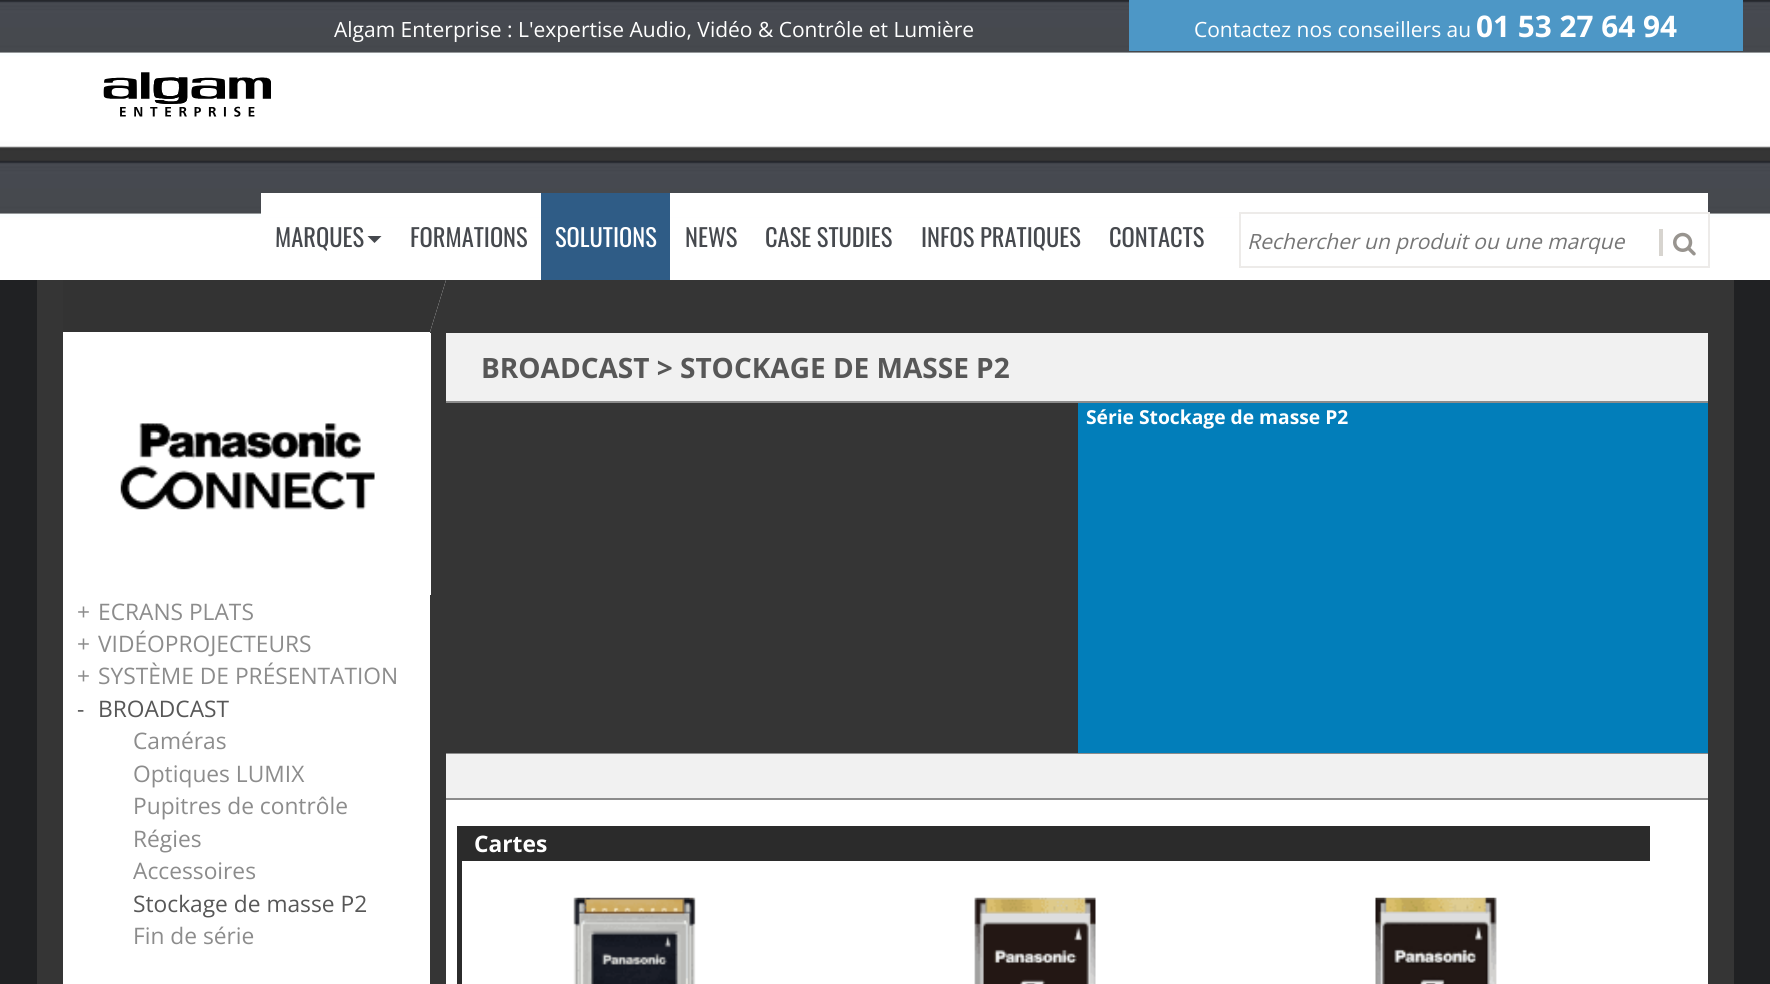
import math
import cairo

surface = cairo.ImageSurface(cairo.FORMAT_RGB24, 1770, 984)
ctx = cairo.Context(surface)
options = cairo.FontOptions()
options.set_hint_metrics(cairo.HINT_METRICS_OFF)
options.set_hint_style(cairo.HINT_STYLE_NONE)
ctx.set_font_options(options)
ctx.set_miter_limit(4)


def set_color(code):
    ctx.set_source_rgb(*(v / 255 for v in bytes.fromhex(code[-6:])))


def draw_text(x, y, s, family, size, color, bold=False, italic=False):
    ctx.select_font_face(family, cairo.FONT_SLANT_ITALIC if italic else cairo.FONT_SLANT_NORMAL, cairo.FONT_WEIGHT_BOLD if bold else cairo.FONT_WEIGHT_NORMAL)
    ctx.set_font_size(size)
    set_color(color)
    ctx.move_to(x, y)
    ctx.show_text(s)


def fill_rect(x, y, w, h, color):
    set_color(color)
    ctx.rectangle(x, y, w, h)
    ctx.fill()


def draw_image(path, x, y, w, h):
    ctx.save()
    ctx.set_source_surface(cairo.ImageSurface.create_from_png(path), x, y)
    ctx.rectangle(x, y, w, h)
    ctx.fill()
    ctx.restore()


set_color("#202123")
ctx.paint()
draw_image("assets/img1.png", 0, 0, 1770, 280)
draw_image("assets/img2.png", 103, 72, 168, 45)
draw_text(334, 37, "Algam Enterprise : L'expertise Audio, Vidéo & Contrôle et Lumière", "Open Sans", 21, "#ffffff")
fill_rect(1129, 0, 614, 51, "#4d97c6")
draw_text(1194, 37, "Contactez nos conseillers au", "Open Sans", 21, "#ffffff")
draw_text(1476, 37, "01 53 27 64 94", "Open Sans", 29.75, "#ffffff", bold=True)
fill_rect(261, 193, 280, 24, "#ffffff")
draw_text(275, 247, "MARQUES", "Oswald", 24.5, "#46494e")
ctx.new_path()
ctx.move_to(367.5, 236)
ctx.line_to(381.5, 236)
ctx.line_to(374.5, 243)
ctx.close_path()
ctx.fill()
draw_text(410, 247, "FORMATIONS", "Oswald", 24.5, "#46494e")
fill_rect(541, 193, 129, 87, "#2f5c86")
draw_text(555, 247, "SOLUTIONS", "Oswald", 24.5, "#ffffff")
fill_rect(670, 193, 1038, 24, "#ffffff")
draw_text(685, 247, "NEWS", "Oswald", 24.5, "#46494e")
draw_text(765, 247, "CASE STUDIES", "Oswald", 24.5, "#46494e")
draw_text(921, 247, "INFOS PRATIQUES", "Oswald", 24.5, "#46494e")
draw_text(1109, 247, "CONTACTS", "Oswald", 24.5, "#46494e")
ctx.rectangle(1240, 213, 469, 54)
set_color("#edebe9")
ctx.stroke()
draw_text(1247, 249, "Rechercher un produit ou une marque", "Open Sans", 21, "#757575", italic=True)
fill_rect(1659, 229, 4, 27, "#d7d4cf")
draw_image("assets/img3.png", 1673, 232, 23, 24)
fill_rect(37, 280, 1697, 704, "#353535")
fill_rect(63, 280, 383, 704, "#ffffff")
set_color("#333333")
ctx.new_path()
ctx.move_to(63, 280)
ctx.line_to(446, 280)
ctx.line_to(430, 332)
ctx.line_to(63, 332)
ctx.close_path()
ctx.fill()
set_color("#353535")
ctx.new_path()
ctx.move_to(446, 280)
ctx.line_to(446, 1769)
ctx.line_to(430, 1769)
ctx.line_to(430, 332)
ctx.close_path()
ctx.fill()
fill_rect(430, 333, 1, 262, "#ffffff")
draw_image("assets/img4.png", 120, 423, 255, 87)
draw_text(77, 620, "+", "Open Sans", 22.75, "#8c8c8c")
draw_text(98, 620, "ECRANS PLATS", "Open Sans", 22.75, "#8c8c8c")
draw_text(77, 652, "+", "Open Sans", 22.75, "#8c8c8c")
draw_text(98, 652, "VIDÉOPROJECTEURS", "Open Sans", 22.75, "#8c8c8c")
draw_text(77, 684, "+", "Open Sans", 22.75, "#8c8c8c")
draw_text(98, 684, "SYSTÈME DE PRÉSENTATION", "Open Sans", 22.75, "#8c8c8c")
draw_text(77, 717, "-", "Open Sans", 22.75, "#575757")
draw_text(98, 717, "BROADCAST", "Open Sans", 22.75, "#575757")
draw_text(133, 749, "Caméras", "Open Sans", 22.75, "#8c8c8c")
draw_text(133, 782, "Optiques LUMIX", "Open Sans", 22.75, "#8c8c8c")
draw_text(133, 814, "Pupitres de contrôle", "Open Sans", 22.75, "#8c8c8c")
draw_text(133, 847, "Régies", "Open Sans", 22.75, "#8c8c8c")
draw_text(133, 879, "Accessoires", "Open Sans", 22.75, "#8c8c8c")
draw_text(133, 912, "Stockage de masse P2", "Open Sans", 22.75, "#575757")
draw_text(133, 944, "Fin de série", "Open Sans", 22.75, "#8c8c8c")
fill_rect(446, 333, 1262, 68, "#f1f1f1")
fill_rect(446, 401, 1262, 2, "#8c8c8c")
draw_text(481, 378, "BROADCAST > STOCKAGE DE MASSE P2", "Open Sans", 28, "#575757", bold=True)
fill_rect(446, 753, 1262, 1, "#8c8c8c")
fill_rect(1078, 403, 630, 350, "#027eba")
draw_text(1086, 424, "Série Stockage de masse P2", "Open Sans", 19.25, "#ffffff", bold=True)
fill_rect(446, 754, 1262, 44, "#f1f1f1")
fill_rect(446, 798, 1262, 2, "#8c8c8c")
fill_rect(446, 800, 1262, 184, "#ffffff")
fill_rect(457, 826, 1193, 35, "#2b2b2b")
draw_text(474, 852, "Cartes", "Open Sans", 22.75, "#ffffff", bold=True)
fill_rect(457, 861, 5, 123, "#2b2b2b")
draw_image("assets/img5.png", 573, 897, 123, 87)
draw_image("assets/img6.png", 974, 897, 122, 87)
draw_image("assets/img7.png", 1375, 897, 122, 87)
surface.write_to_png("output.png")
